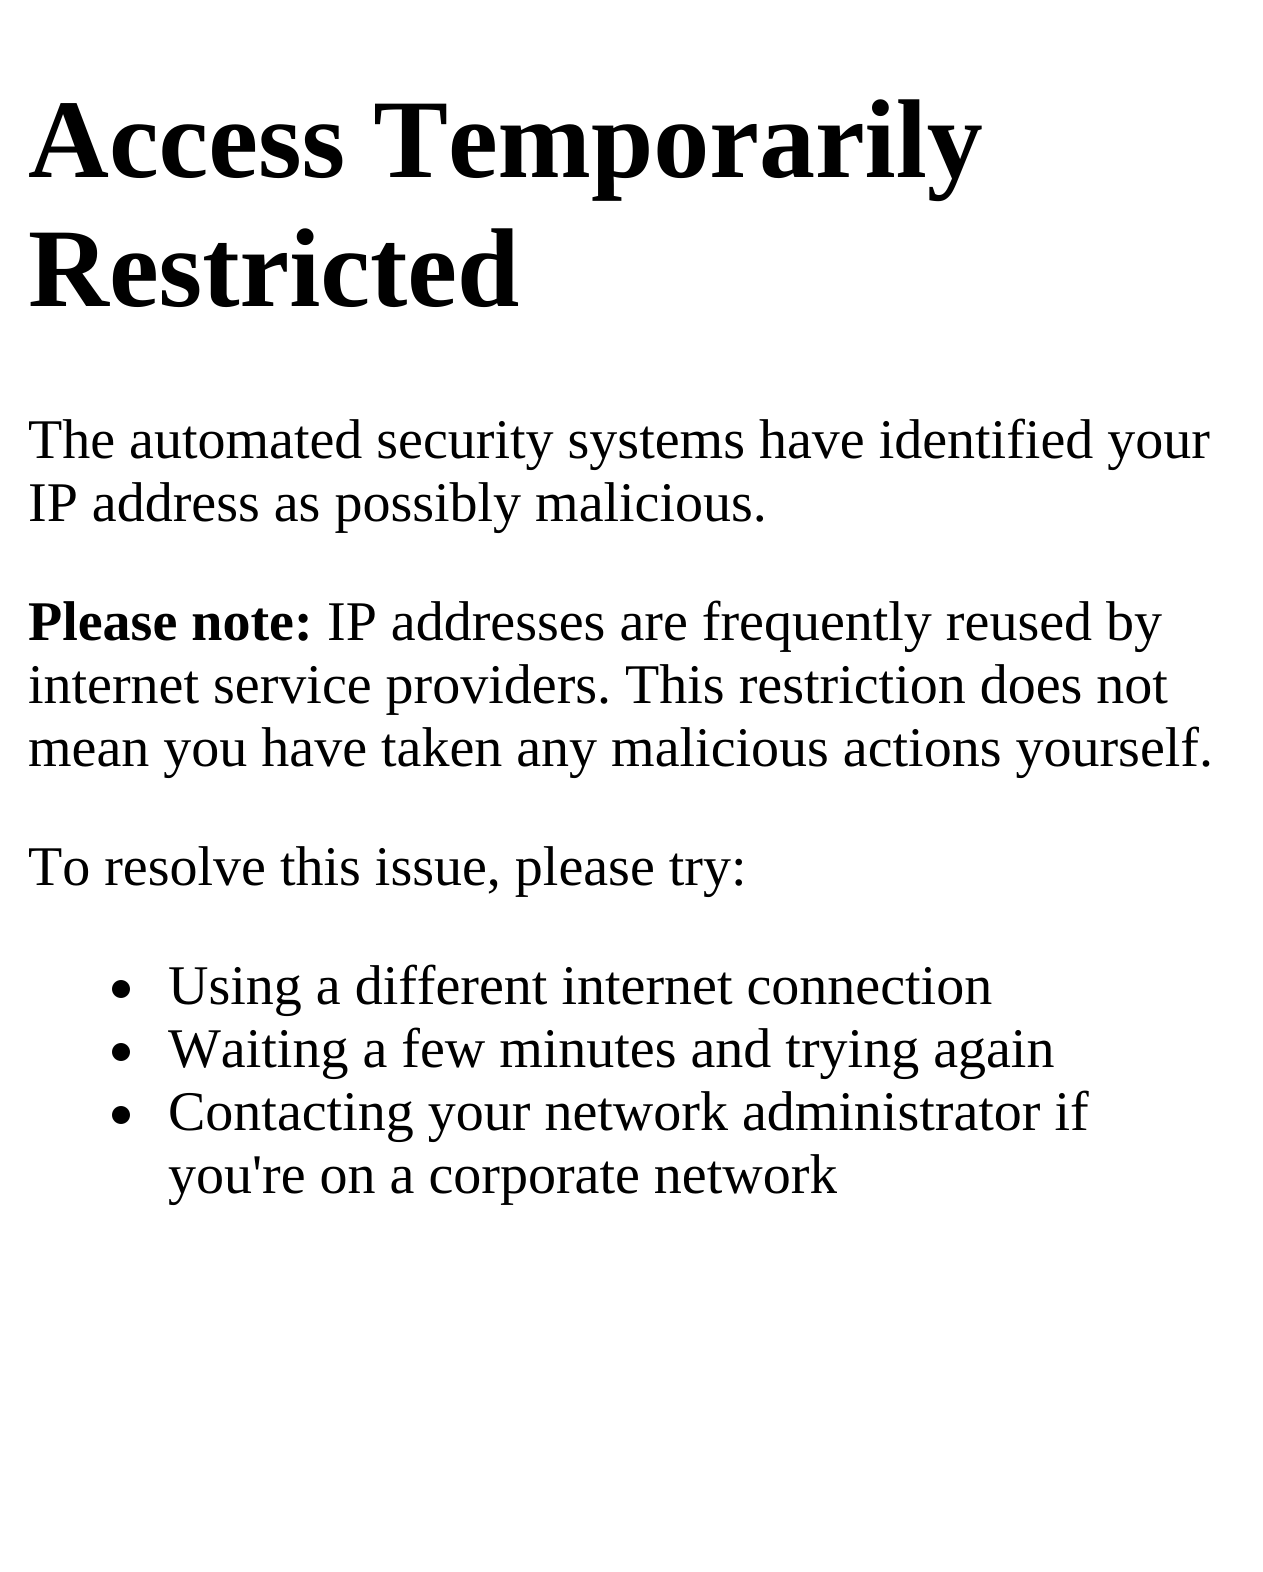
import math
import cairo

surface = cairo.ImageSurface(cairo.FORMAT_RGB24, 1263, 1572)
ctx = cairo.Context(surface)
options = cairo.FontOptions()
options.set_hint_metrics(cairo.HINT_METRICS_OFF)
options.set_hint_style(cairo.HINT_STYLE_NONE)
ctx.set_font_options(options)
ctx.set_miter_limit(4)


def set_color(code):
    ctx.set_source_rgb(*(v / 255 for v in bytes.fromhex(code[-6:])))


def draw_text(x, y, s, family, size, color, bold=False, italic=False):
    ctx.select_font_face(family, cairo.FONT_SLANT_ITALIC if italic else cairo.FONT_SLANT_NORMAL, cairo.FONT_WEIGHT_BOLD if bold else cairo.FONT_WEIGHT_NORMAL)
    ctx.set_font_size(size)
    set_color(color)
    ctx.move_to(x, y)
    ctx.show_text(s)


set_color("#ffffff")
ctx.paint()
draw_text(28, 177, "Access Temporarily", "Liberation Serif", 112, "#000000", bold=True)
draw_text(28, 306, "Restricted", "Liberation Serif", 112, "#000000", bold=True)
draw_text(28, 458, "The automated security systems have identified your", "Liberation Serif", 56, "#000000")
draw_text(28, 521, "IP address as possibly malicious.", "Liberation Serif", 56, "#000000")
draw_text(28, 640, "Please note:", "Liberation Serif", 56, "#000000", bold=True)
draw_text(327, 640, "IP addresses are frequently reused by", "Liberation Serif", 56, "#000000")
draw_text(28, 703, "internet service providers. This restriction does not", "Liberation Serif", 56, "#000000")
draw_text(28, 766, "mean you have taken any malicious actions yourself.", "Liberation Serif", 56, "#000000")
draw_text(28, 885, "To resolve this issue, please try:", "Liberation Serif", 56, "#000000")
ctx.new_path()
ctx.arc(121, 989, 9, 0, 2 * math.pi)
ctx.fill()
draw_text(168, 1004, "Using a different internet connection", "Liberation Serif", 56, "#000000")
ctx.new_path()
ctx.arc(121, 1052, 9, 0, 2 * math.pi)
ctx.fill()
draw_text(168, 1067, "Waiting a few minutes and trying again", "Liberation Serif", 56, "#000000")
ctx.new_path()
ctx.arc(121, 1115, 9, 0, 2 * math.pi)
ctx.fill()
draw_text(168, 1130, "Contacting your network administrator if", "Liberation Serif", 56, "#000000")
draw_text(168, 1193, "you're on a corporate network", "Liberation Serif", 56, "#000000")
surface.write_to_png("output.png")
